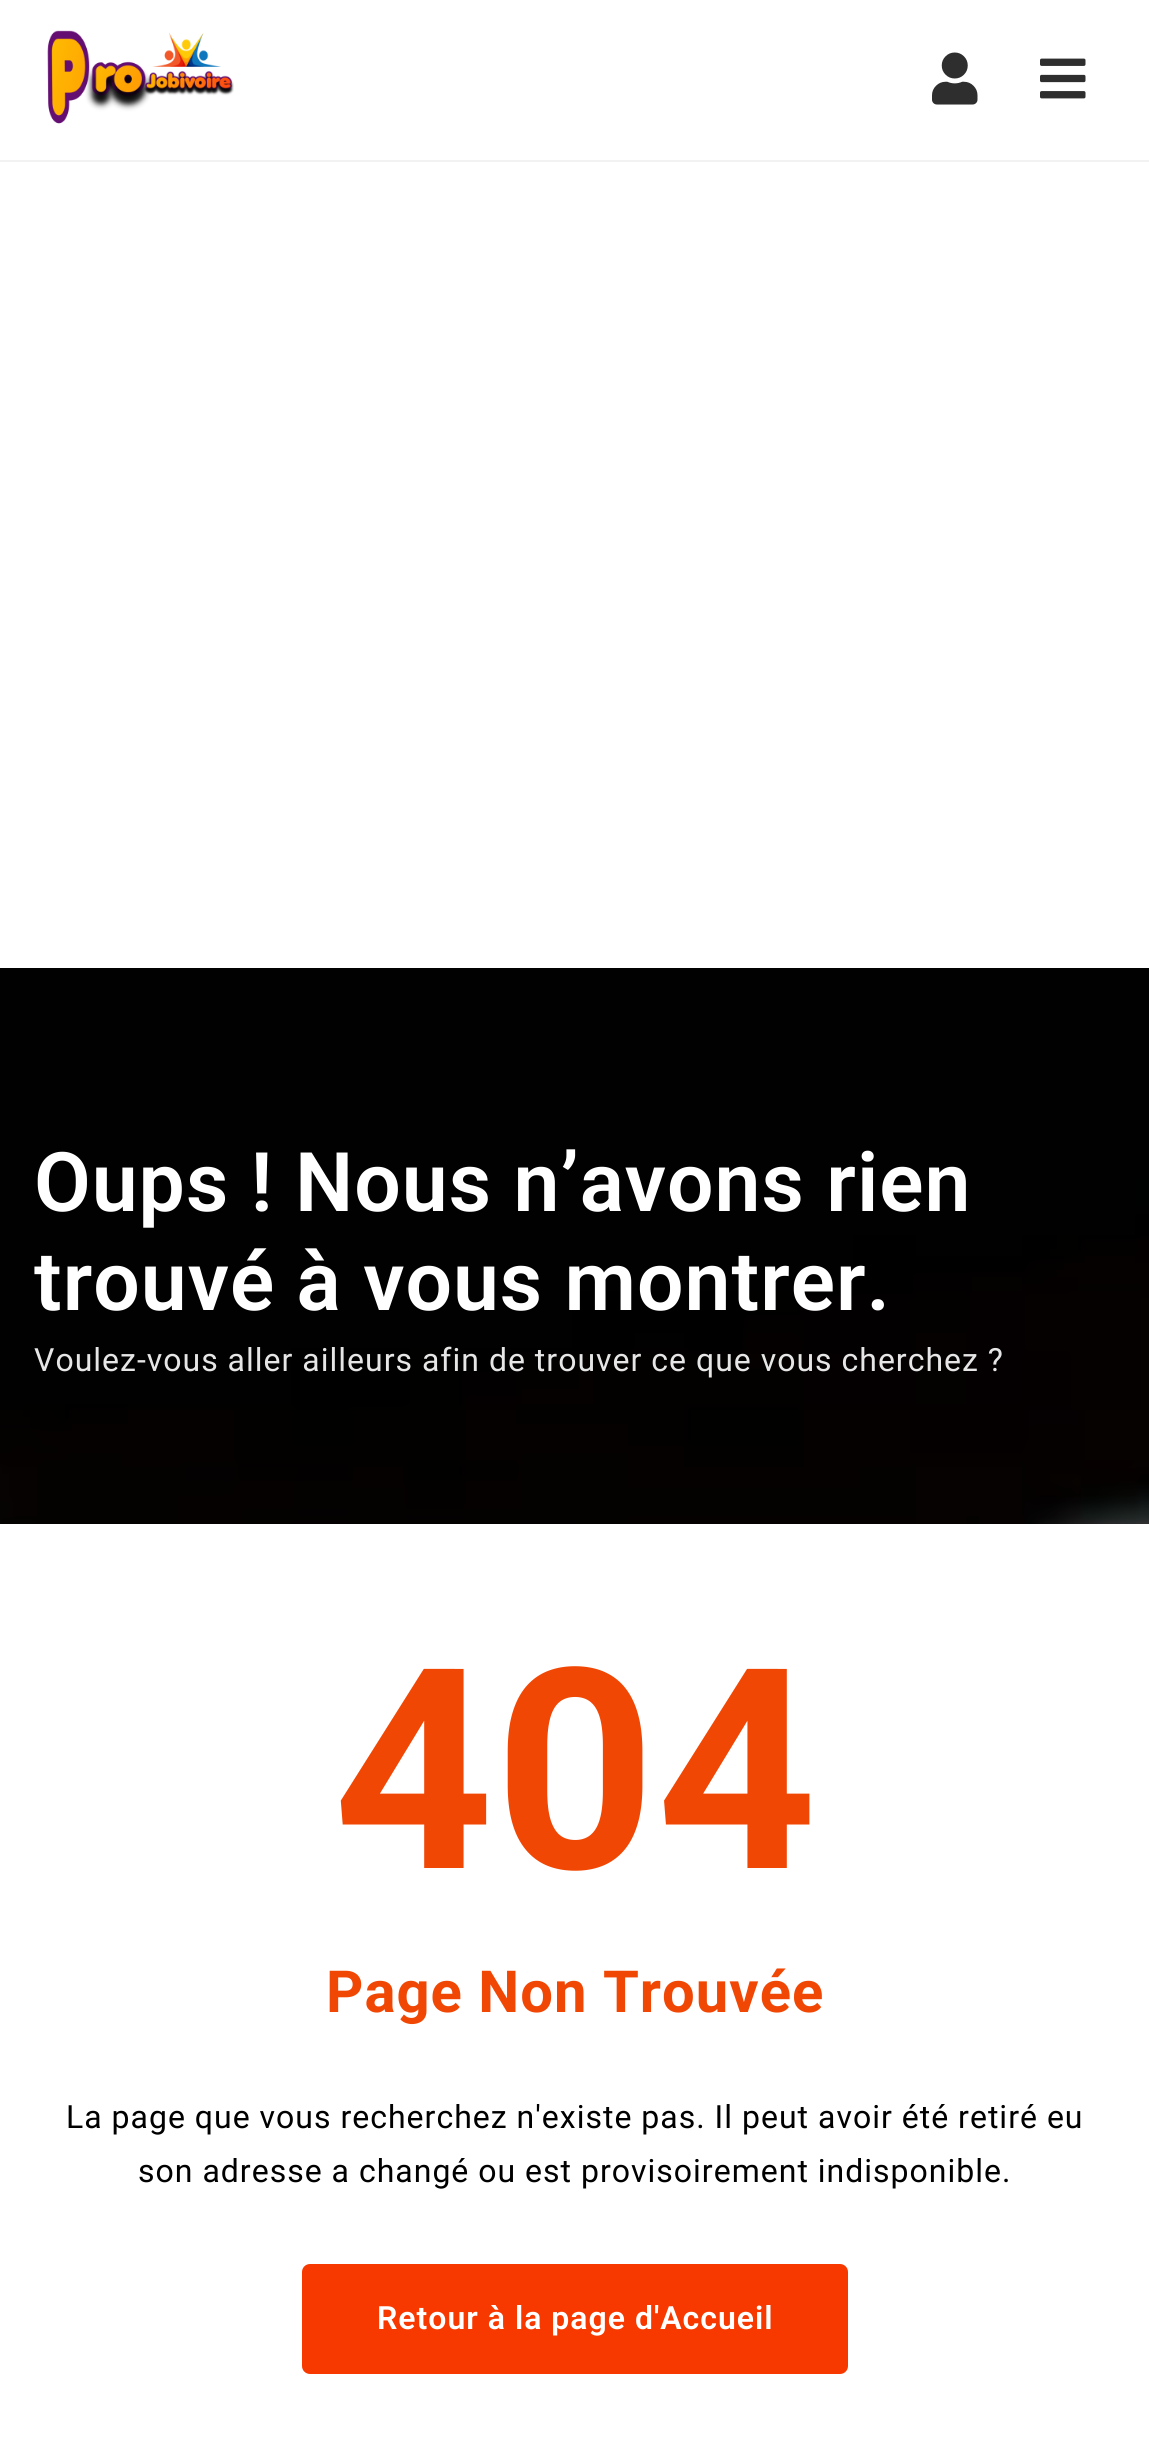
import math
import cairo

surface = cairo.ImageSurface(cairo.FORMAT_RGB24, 1149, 2462)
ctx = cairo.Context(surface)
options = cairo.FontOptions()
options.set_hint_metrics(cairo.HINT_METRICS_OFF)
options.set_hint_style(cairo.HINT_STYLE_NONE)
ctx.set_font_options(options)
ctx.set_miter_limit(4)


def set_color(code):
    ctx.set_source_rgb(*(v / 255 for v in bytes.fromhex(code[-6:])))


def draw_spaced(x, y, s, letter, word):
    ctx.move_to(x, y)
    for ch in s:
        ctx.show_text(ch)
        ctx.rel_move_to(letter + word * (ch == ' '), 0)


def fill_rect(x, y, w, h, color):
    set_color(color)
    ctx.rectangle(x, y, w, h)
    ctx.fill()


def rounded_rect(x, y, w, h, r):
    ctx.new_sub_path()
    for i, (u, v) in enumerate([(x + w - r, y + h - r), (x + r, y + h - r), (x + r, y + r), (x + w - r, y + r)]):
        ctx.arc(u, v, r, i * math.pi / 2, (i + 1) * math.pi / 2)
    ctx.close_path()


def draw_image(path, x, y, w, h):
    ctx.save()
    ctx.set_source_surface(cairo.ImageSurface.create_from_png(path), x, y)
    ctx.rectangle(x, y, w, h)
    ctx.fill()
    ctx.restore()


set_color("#ffffff")
ctx.paint()
fill_rect(0, 160, 1149, 2, "#f2f2f2")
draw_image("assets/img1.png", 47, 30, 187, 94)
draw_image("assets/img2.png", 932, 52, 46, 53)
draw_image("assets/img3.png", 1040, 58, 46, 41)
draw_image("assets/img4.png", 0, 968, 1149, 556)
ctx.select_font_face("Roboto SemiBold")
ctx.set_font_size(82.25)
set_color("#ffffff")
draw_spaced(34, 1211, "Oups ! Nous n’avons rien", 1, 0)
draw_spaced(34, 1310, "trouvé à vous montrer.", 1, 0)
ctx.select_font_face("Roboto")
ctx.set_font_size(32)
set_color("#e6e6e6")
draw_spaced(34, 1371, "Voulez-vous aller ailleurs afin de trouver ce que vous cherchez ?", 1, 0)
ctx.select_font_face("Roboto", cairo.FONT_SLANT_NORMAL, cairo.FONT_WEIGHT_BOLD)
ctx.set_font_size(280)
set_color("#f14705")
draw_spaced(333, 1868, "404", 1, 0)
ctx.set_font_size(58)
draw_spaced(326, 2012, "Page Non Trouvée", 1, 0)
ctx.select_font_face("Roboto")
ctx.set_font_size(32)
set_color("#000000")
draw_spaced(66, 2128, "La page que vous recherchez n'existe pas. Il peut avoir été retiré eu", 1, 0)
draw_spaced(138, 2182, "son adresse a changé ou est provisoirement indisponible.", 1, 0)
set_color("#f73900")
rounded_rect(302, 2264, 546, 110, 8)
ctx.fill()
ctx.select_font_face("Roboto SemiBold")
set_color("#ffffff")
draw_spaced(377, 2329, "Retour à la page d'Accueil", 1, 0)
surface.write_to_png("output.png")
